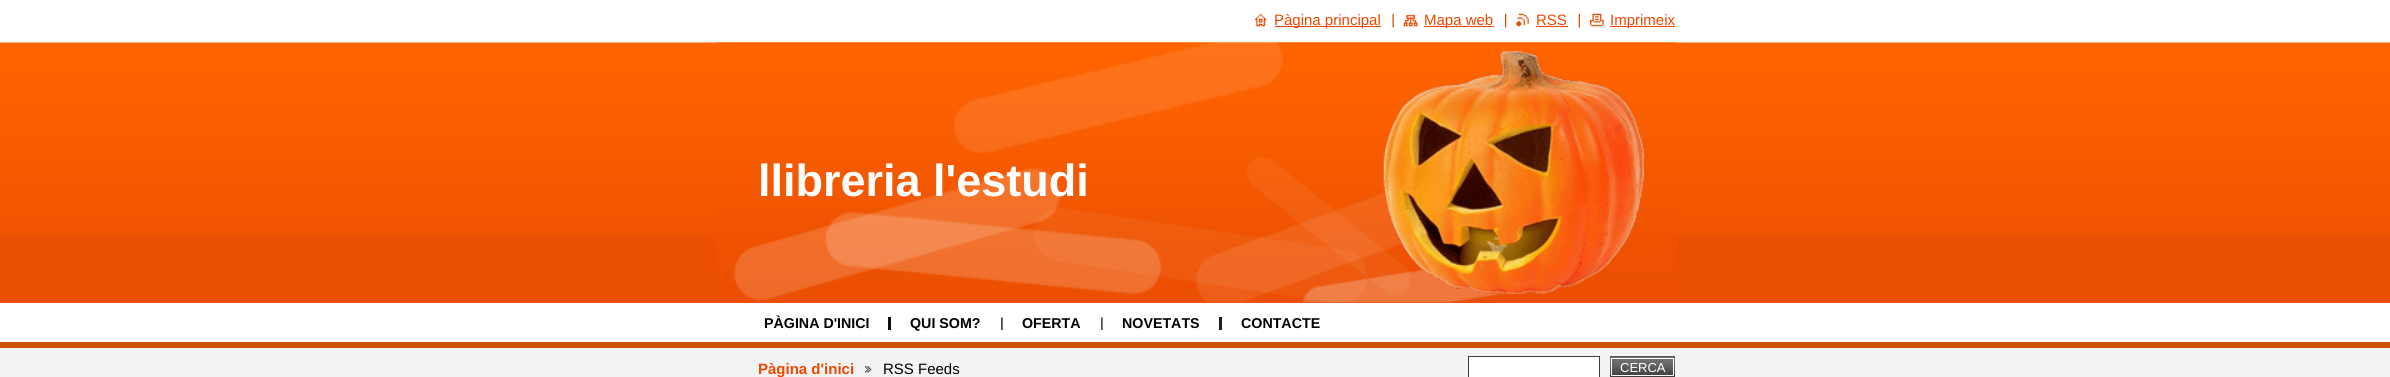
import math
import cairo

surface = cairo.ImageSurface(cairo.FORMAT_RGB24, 2390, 377)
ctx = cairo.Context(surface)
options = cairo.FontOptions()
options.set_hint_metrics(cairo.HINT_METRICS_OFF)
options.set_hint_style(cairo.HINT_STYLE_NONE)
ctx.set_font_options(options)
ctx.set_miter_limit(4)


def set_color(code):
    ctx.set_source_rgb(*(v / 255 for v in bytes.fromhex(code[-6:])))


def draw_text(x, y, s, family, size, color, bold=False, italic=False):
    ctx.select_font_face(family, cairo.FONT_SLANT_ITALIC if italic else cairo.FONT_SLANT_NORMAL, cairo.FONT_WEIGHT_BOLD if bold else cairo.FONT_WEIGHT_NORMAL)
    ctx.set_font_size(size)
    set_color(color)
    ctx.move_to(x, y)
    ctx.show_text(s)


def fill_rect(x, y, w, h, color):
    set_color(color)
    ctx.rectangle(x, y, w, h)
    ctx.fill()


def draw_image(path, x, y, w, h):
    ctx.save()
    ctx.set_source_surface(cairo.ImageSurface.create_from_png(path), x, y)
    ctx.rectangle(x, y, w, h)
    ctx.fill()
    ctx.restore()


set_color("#ffffff")
ctx.paint()
draw_image("assets/img1.png", 1255, 13, 12, 14)
fill_rect(1275, 26, 106, 1, "#ec4700")
draw_text(1274, 25, "Pàgina principal", "Liberation Sans", 15, "#ec4700")
draw_image("assets/img2.png", 1392, 13, 2, 15)
draw_image("assets/img3.png", 1403, 14, 15, 13)
fill_rect(1424, 26, 70, 1, "#ec4700")
draw_text(1424, 25, "Mapa web", "Liberation Sans", 15, "#ec4700")
draw_image("assets/img4.png", 1505, 13, 2, 15)
draw_image("assets/img5.png", 1516, 13, 13, 14)
draw_text(1536, 25, "RSS", "Liberation Sans", 15, "#ec4700")
fill_rect(1536, 26, 32, 1, "#ec4700")
draw_image("assets/img6.png", 1578, 13, 2, 15)
draw_image("assets/img7.png", 1590, 13, 14, 14)
fill_rect(1610, 26, 65, 1, "#ec4700")
draw_text(1610, 25, "Imprimeix", "Liberation Sans", 15, "#ec4700")
fill_rect(0, 235, 2390, 68, "#eb4f01")
draw_image("assets/img8.png", 0, 42, 2390, 193)
draw_image("assets/img9.png", 715, 42, 960, 261)
draw_text(758, 196, "llibreria l'estudi", "Liberation Sans", 45, "#ffffff", bold=True)
draw_image("assets/img10.png", 1383, 51, 261, 243)
draw_text(764, 328, "PÀGINA D'INICI", "Liberation Sans", 14.25, "#000000", bold=True)
fill_rect(888, 317, 3, 13, "#0f0f0f")
draw_text(910, 328, "QUI SOM?", "Liberation Sans", 14.25, "#000000", bold=True)
draw_image("assets/img11.png", 1001, 317, 2, 13)
draw_text(1022, 328, "OFERTA", "Liberation Sans", 14.25, "#000000", bold=True)
draw_image("assets/img12.png", 1101, 317, 2, 13)
draw_text(1122, 328, "NOVETATS", "Liberation Sans", 14.25, "#000000", bold=True)
fill_rect(1219, 317, 3, 13, "#1f1f1f")
draw_text(1241, 328, "CONTACTE", "Liberation Sans", 14.25, "#000000", bold=True)
fill_rect(0, 348, 2390, 29, "#f3f3f3")
fill_rect(0, 342, 2390, 6, "#ce5102")
draw_text(758, 374, "Pàgina d'inici", "Liberation Sans", 15, "#ec4700", bold=True)
draw_image("assets/img13.png", 865, 366, 7, 7)
draw_text(883, 374, "RSS Feeds", "Liberation Sans", 15, "#000000")
set_color("#ffffff")
ctx.rectangle(1468.5, 356.5, 131, 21)
ctx.fill_preserve()
set_color("#404040")
ctx.set_line_width(1)
ctx.stroke()
fill_rect(1610, 356, 65, 21, "#404040")
draw_image("assets/img14.png", 1610, 356, 65, 19)
draw_image("assets/img15.png", 1612, 359, 61, 16)
ctx.rectangle(1611.5, 358.5, 62, 17)
set_color("#ffffff")
ctx.stroke()
draw_text(1620, 372, "CERCA", "Liberation Sans", 13, "#ffffff")
surface.write_to_png("output.png")
